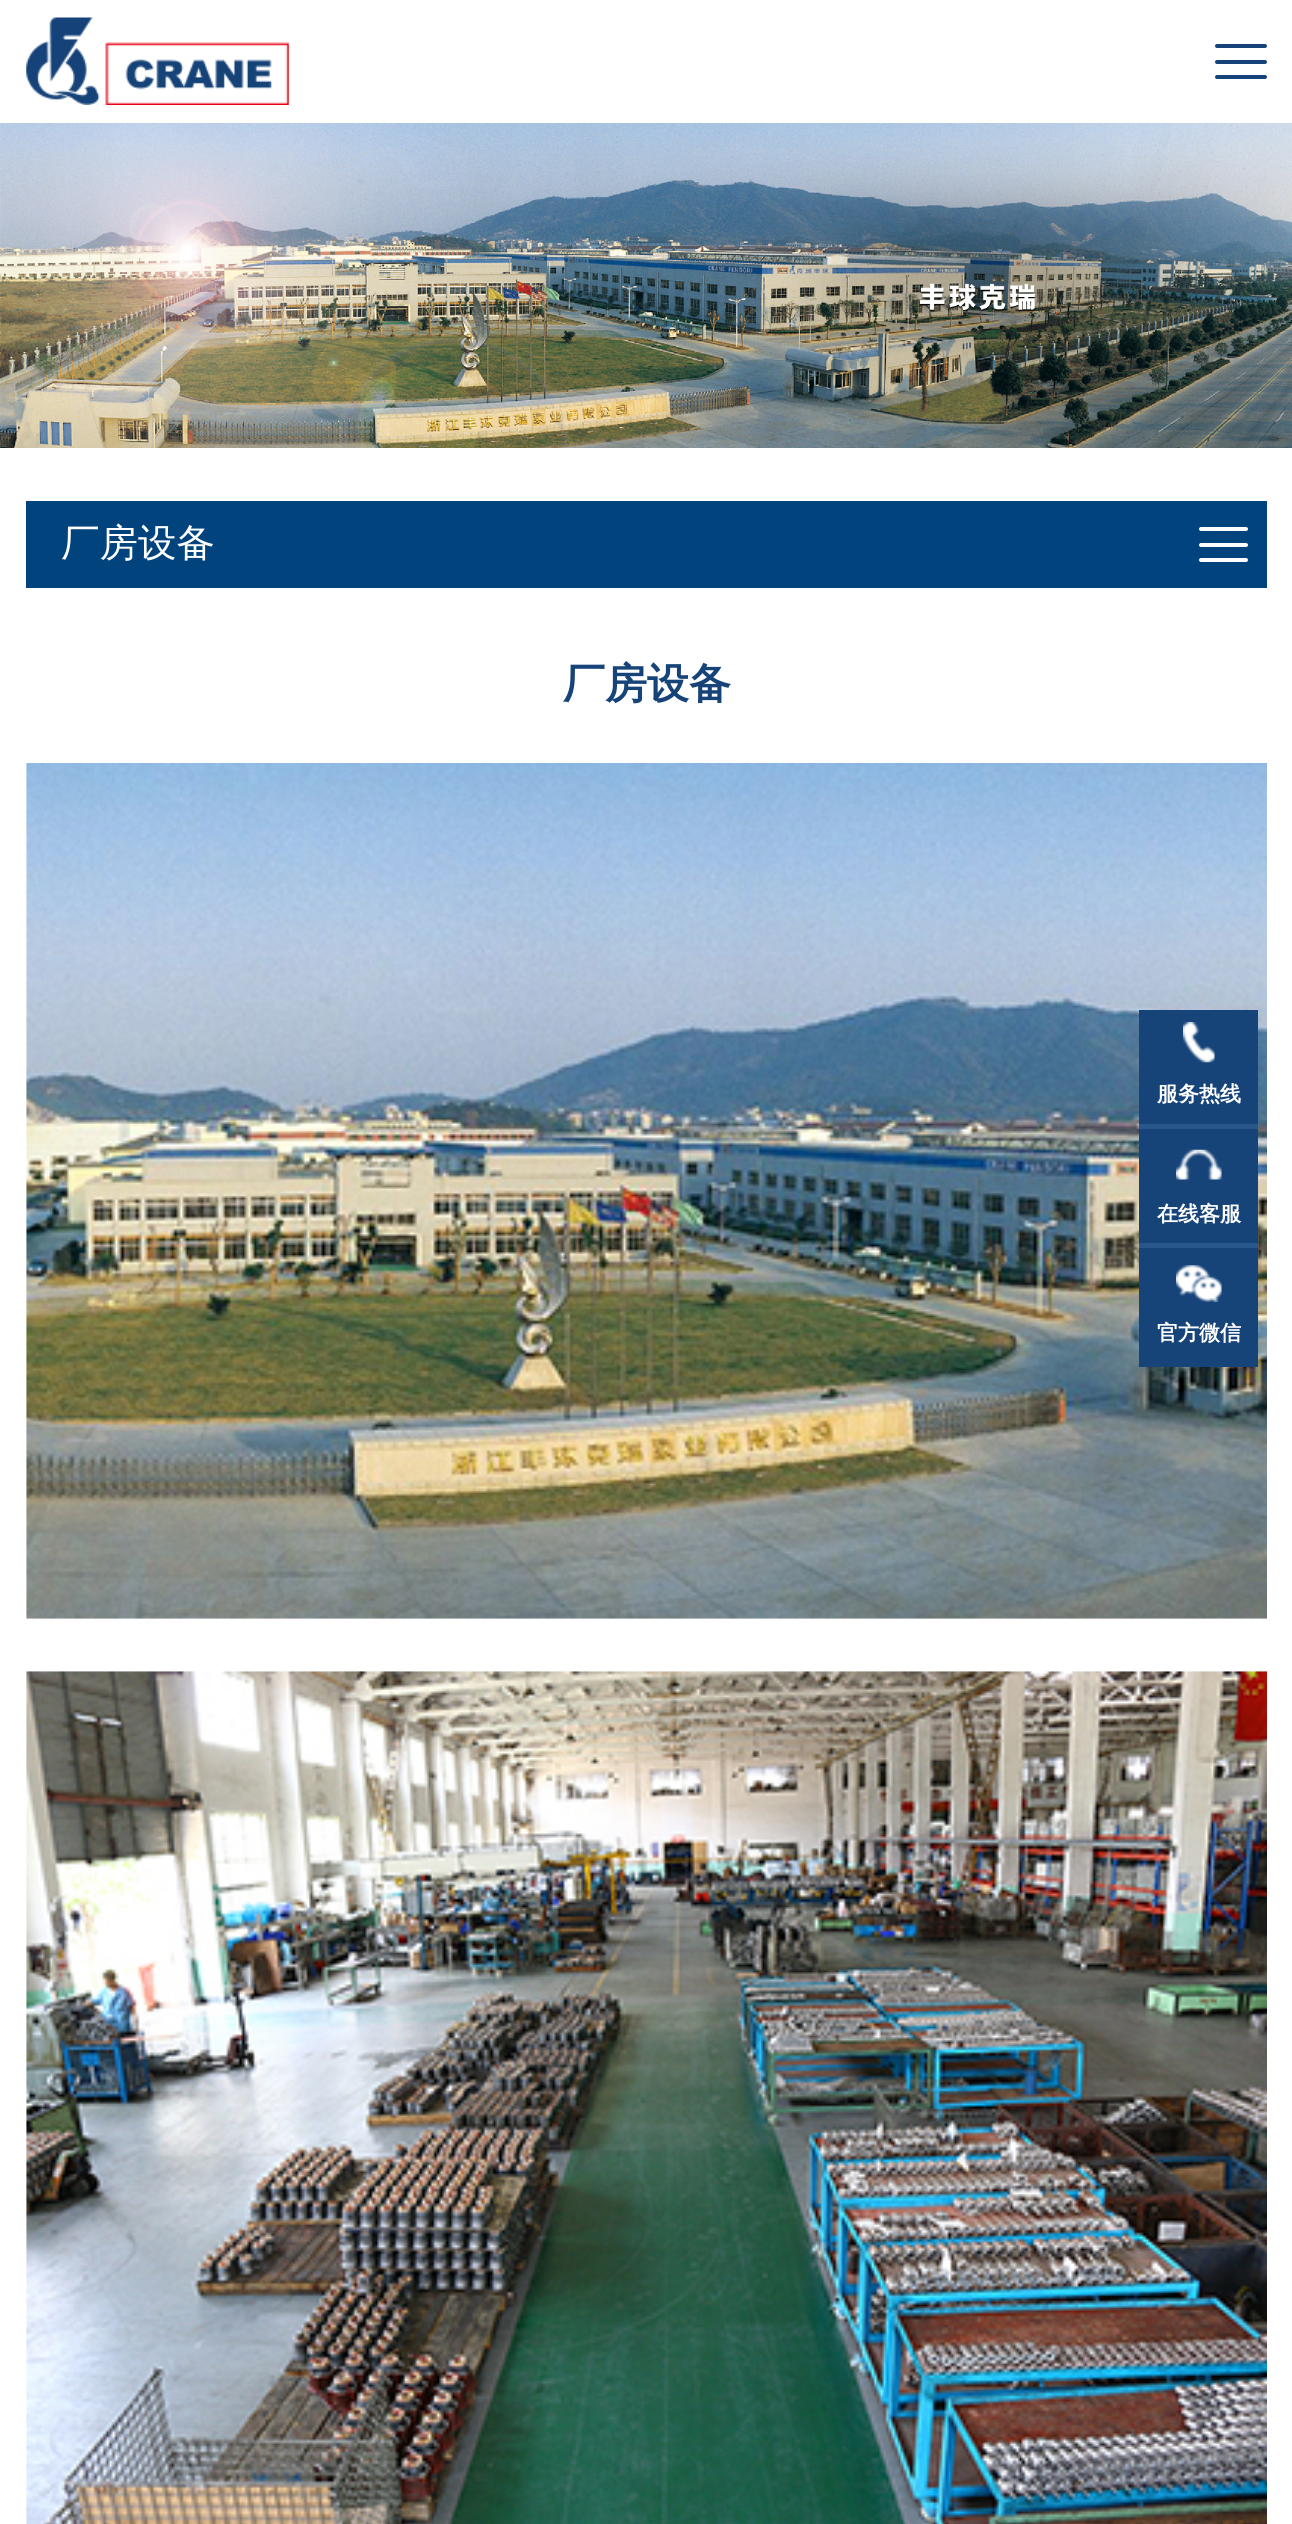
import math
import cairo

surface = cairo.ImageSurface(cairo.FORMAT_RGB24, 1292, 2524)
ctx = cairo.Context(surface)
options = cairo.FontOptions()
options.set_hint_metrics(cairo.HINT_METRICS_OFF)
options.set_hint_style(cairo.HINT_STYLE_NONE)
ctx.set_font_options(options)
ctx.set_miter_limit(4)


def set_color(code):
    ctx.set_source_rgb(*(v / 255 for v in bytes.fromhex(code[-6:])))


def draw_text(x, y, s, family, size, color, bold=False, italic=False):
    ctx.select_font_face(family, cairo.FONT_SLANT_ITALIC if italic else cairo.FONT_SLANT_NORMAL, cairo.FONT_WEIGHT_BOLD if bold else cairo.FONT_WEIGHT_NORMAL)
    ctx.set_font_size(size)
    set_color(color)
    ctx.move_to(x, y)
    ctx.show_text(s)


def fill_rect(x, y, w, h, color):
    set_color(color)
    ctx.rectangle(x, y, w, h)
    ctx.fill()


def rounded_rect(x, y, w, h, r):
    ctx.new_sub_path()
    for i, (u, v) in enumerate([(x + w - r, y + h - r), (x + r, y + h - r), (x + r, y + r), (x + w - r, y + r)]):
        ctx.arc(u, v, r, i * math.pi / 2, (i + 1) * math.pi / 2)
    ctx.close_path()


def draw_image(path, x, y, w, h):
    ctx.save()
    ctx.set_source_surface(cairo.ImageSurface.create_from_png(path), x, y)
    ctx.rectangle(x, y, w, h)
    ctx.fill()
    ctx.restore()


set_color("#ffffff")
ctx.paint()
draw_image("assets/img1.png", 26, 17, 263, 88)
set_color("#154278")
rounded_rect(1215, 44, 52, 4, 2)
ctx.fill()
rounded_rect(1215, 60, 52, 4, 2)
ctx.fill()
rounded_rect(1215, 75, 52, 4, 2)
ctx.fill()
draw_image("assets/img2.png", 0, 123, 1292, 325)
fill_rect(26, 501, 1241, 87, "#01437d")
draw_text(61, 556, "厂房设备", "WenQuanYi Zen Hei Medium", 38.5, "#ffffff")
rounded_rect(1199, 527, 49, 4, 2)
ctx.fill()
rounded_rect(1199, 543, 49, 4, 2)
ctx.fill()
rounded_rect(1199, 558, 49, 4, 2)
ctx.fill()
draw_text(563, 698, "厂房设备", "WenQuanYi Zen Hei", 42, "#164479", bold=True)
draw_image("assets/img3.png", 26, 763, 1241, 856)
draw_image("assets/img4.png", 26, 1671, 1241, 853)
fill_rect(1139, 1010, 119, 114, "#164479")
fill_rect(1139, 1124, 119, 5, "#28578c")
draw_image("assets/img5.png", 1183, 1022, 32, 41)
draw_text(1157, 1101, "服务热线", "WenQuanYi Zen Hei", 21, "#ffffff", bold=True)
fill_rect(1139, 1129, 119, 114, "#164479")
fill_rect(1139, 1243, 119, 5, "#28578c")
draw_image("assets/img6.png", 1176, 1149, 46, 31)
draw_text(1157, 1221, "在线客服", "WenQuanYi Zen Hei", 21, "#ffffff", bold=True)
fill_rect(1139, 1248, 119, 119, "#164479")
draw_image("assets/img7.png", 1176, 1265, 46, 37)
draw_text(1157, 1340, "官方微信", "WenQuanYi Zen Hei", 21, "#ffffff", bold=True)
surface.write_to_png("output.png")
